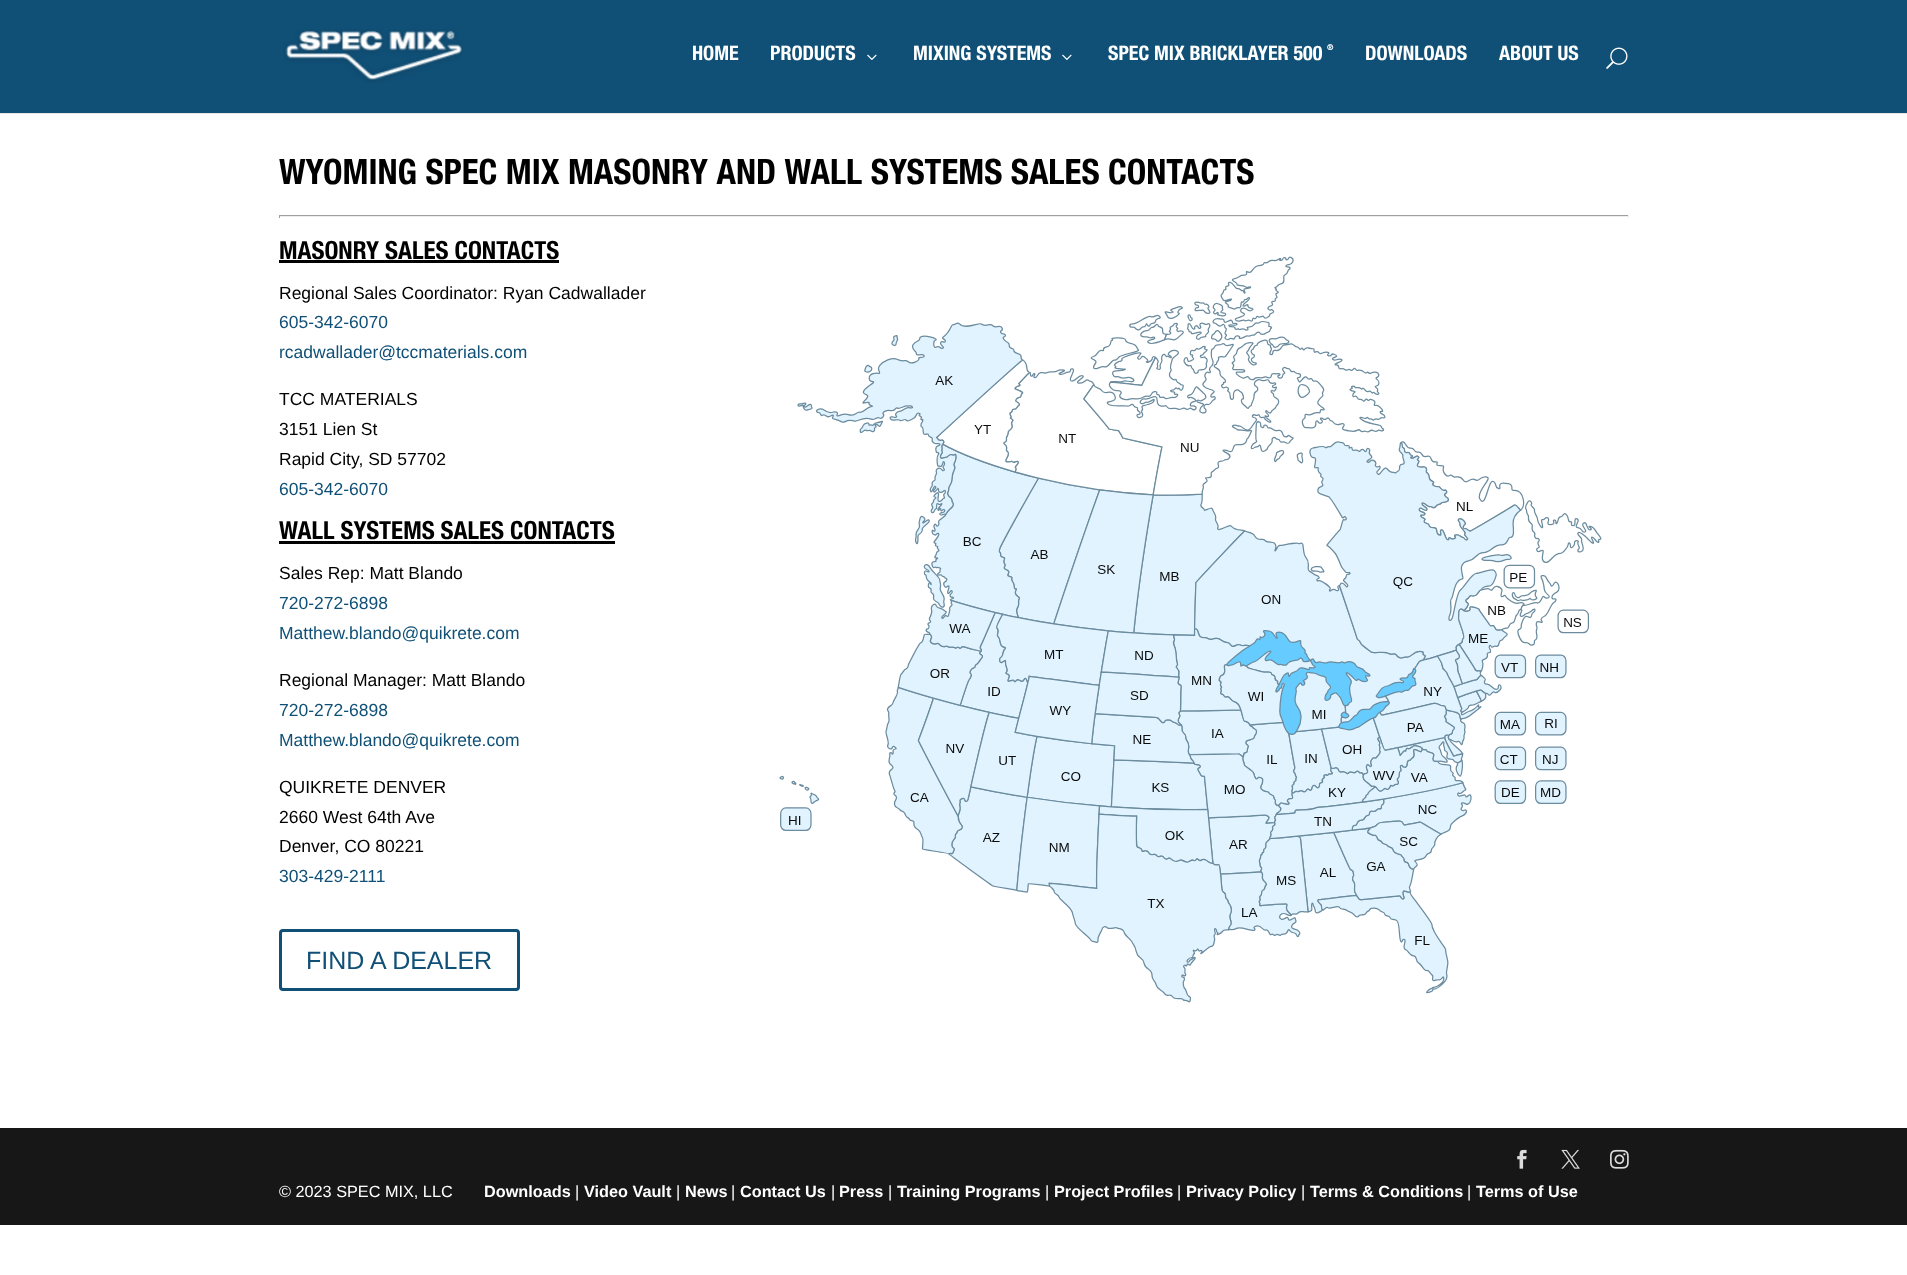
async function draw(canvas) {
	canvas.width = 1907;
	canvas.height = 1275;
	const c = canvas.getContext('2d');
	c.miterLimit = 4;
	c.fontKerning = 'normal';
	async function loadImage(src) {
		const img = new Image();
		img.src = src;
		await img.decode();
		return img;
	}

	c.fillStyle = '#fff';
	c.fillRect(0, 0, 1907, 1275);
	c.fillStyle = '#e6e6e6';
	c.beginPath();
	c.moveTo(0, 112);
	c.lineTo(0, 114);
	c.lineTo(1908, 114);
	c.lineTo(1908, 1);
	c.lineTo(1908, 112);
	c.closePath();
	c.fill();
	c.fillStyle = '#105077';
	c.fillRect(0, 0, 1907, 113);
	c.drawImage(await loadImage('img1.png'), 283, 29, 180, 54);
	c.font = 'bold 20px Helvetica Neue';
	c.fillStyle = '#fff';
	c.fillText('HOME', 692, 60);
	c.fillText('PRODUCTS', 770, 60);
	c.drawImage(await loadImage('img2.png'), 867, 54, 10, 6);
	c.fillText('MIXING SYSTEMS', 913, 60);
	c.drawImage(await loadImage('img2.png'), 1062, 54, 10, 6);
	c.fillText('SPEC MIX BRICKLAYER 500', 1108, 60);
	c.font = 'bold 8px Helvetica Neue';
	c.fillText('®', 1327, 50);
	c.font = 'bold 20px Helvetica Neue';
	c.fillText('DOWNLOADS', 1365, 60);
	c.fillText('ABOUT US', 1499, 60);
	c.drawImage(await loadImage('img3.png'), 1606, 47, 22, 22);
	c.font = 'bold 35px Helvetica Neue';
	c.fillStyle = '#000';
	c.fillText('WYOMING SPEC MIX MASONRY AND WALL SYSTEMS SALES CONTACTS', 279, 184);
	for (const [x, y, w, h, color] of [
		[279, 215, 1350, 1, '#9f9f9f'],
		[1628, 215, 1, 3, '#eee'],
		[279, 216, 1350, 1, '#eee'],
		[279, 215, 1, 3, '#9f9f9f'],
	]) {
		c.fillStyle = color;
		c.fillRect(x, y, w, h);
	}
	c.font = 'bold 25px Helvetica Neue';
	c.fillStyle = '#000';
	c.fillText('MASONRY SALES CONTACTS', 279, 259);
	c.fillRect(279, 260, 280, 3);
	c.font = '17.5px Liberation Sans';
	c.fillText('Regional Sales Coordinator: Ryan Cadwallader', 279, 299);
	c.fillStyle = '#105077';
	c.fillText('605-342-6070', 279, 328);
	c.fillText('rcadwallader@tccmaterials.com', 279, 358);
	c.fillStyle = '#000';
	for (const [text, x, y] of [
		['TCC MATERIALS', 279, 405],
		['3151 Lien St', 279, 435],
		['Rapid City, SD 57702', 279, 465],
	]) {
		c.fillText(text, x, y);
	}
	c.fillStyle = '#105077';
	c.fillText('605-342-6070', 279, 495);
	c.font = 'bold 25px Helvetica Neue';
	c.fillStyle = '#000';
	c.fillText('WALL SYSTEMS SALES CONTACTS', 279, 539);
	c.fillRect(279, 541, 336, 3);
	c.font = '17.5px Liberation Sans';
	c.fillText('Sales Rep: Matt Blando', 279, 579);
	c.fillStyle = '#105077';
	c.fillText('720-272-6898', 279, 609);
	c.fillText('Matthew.blando@quikrete.com', 279, 639);
	c.fillStyle = '#000';
	c.fillText('Regional Manager: Matt Blando', 279, 686);
	c.fillStyle = '#105077';
	c.fillText('720-272-6898', 279, 716);
	c.fillText('Matthew.blando@quikrete.com', 279, 746);
	c.fillStyle = '#000';
	for (const [text, x, y] of [
		['QUIKRETE DENVER', 279, 793],
		['2660 West 64th Ave', 279, 823],
		['Denver, CO 80221', 279, 852],
	]) {
		c.fillText(text, x, y);
	}
	c.fillStyle = '#105077';
	c.fillText('303-429-2111', 279, 882);
	c.beginPath();
	c.roundRect(280.5, 930.5, 238, 59, 2.5);
	c.strokeStyle = '#105077';
	c.lineWidth = 3;
	c.stroke();
	c.font = '25px Liberation Sans';
	c.fillText('FIND A DEALER', 306, 969);
	c.drawImage(await loadImage('img4.png'), 779, 256, 823, 747);
	c.fillStyle = '#171717';
	c.fillRect(0, 1128, 1907, 97);
	c.drawImage(await loadImage('img5.png'), 1517, 1149, 10, 20);
	c.drawImage(await loadImage('img6.png'), 1561, 1149, 19, 20);
	c.drawImage(await loadImage('img7.png'), 1610, 1149, 19, 20);
	c.font = '16.25px Liberation Sans';
	c.fillStyle = '#fff';
	c.fillText('© 2023 SPEC MIX, LLC', 279, 1197);
	c.font = 'bold 16.25px Liberation Sans';
	c.fillText('Downloads', 484, 1197);
	c.font = '16.25px Liberation Sans';
	c.fillText('|', 575, 1197);
	c.font = 'bold 16.25px Liberation Sans';
	c.fillText('Video Vault', 584, 1197);
	c.font = '16.25px Liberation Sans';
	c.fillText('|', 676, 1197);
	c.font = 'bold 16.25px Liberation Sans';
	c.fillText('News', 685, 1197);
	c.font = '16.25px Liberation Sans';
	c.fillText('|', 731, 1197);
	c.font = 'bold 16.25px Liberation Sans';
	c.fillText('Contact Us', 740, 1197);
	c.font = '16.25px Liberation Sans';
	c.fillText('|', 831, 1197);
	c.font = 'bold 16.25px Liberation Sans';
	c.fillText('Press', 839, 1197);
	c.font = '16.25px Liberation Sans';
	c.fillText('|', 888, 1197);
	c.font = 'bold 16.25px Liberation Sans';
	c.fillText('Training Programs', 897, 1197);
	c.font = '16.25px Liberation Sans';
	c.fillText('|', 1045, 1197);
	c.font = 'bold 16.25px Liberation Sans';
	c.fillText('Project Profiles', 1054, 1197);
	c.font = '16.25px Liberation Sans';
	c.fillText('|', 1177, 1197);
	c.font = 'bold 16.25px Liberation Sans';
	c.fillText('Privacy Policy', 1186, 1197);
	c.font = '16.25px Liberation Sans';
	c.fillText('|', 1301, 1197);
	c.font = 'bold 16.25px Liberation Sans';
	c.fillText('Terms & Conditions', 1310, 1197);
	c.font = '16.25px Liberation Sans';
	c.fillText('|', 1467, 1197);
	c.font = 'bold 16.25px Liberation Sans';
	c.fillText('Terms of Use', 1476, 1197);
}

draw(document.querySelector('canvas'));
